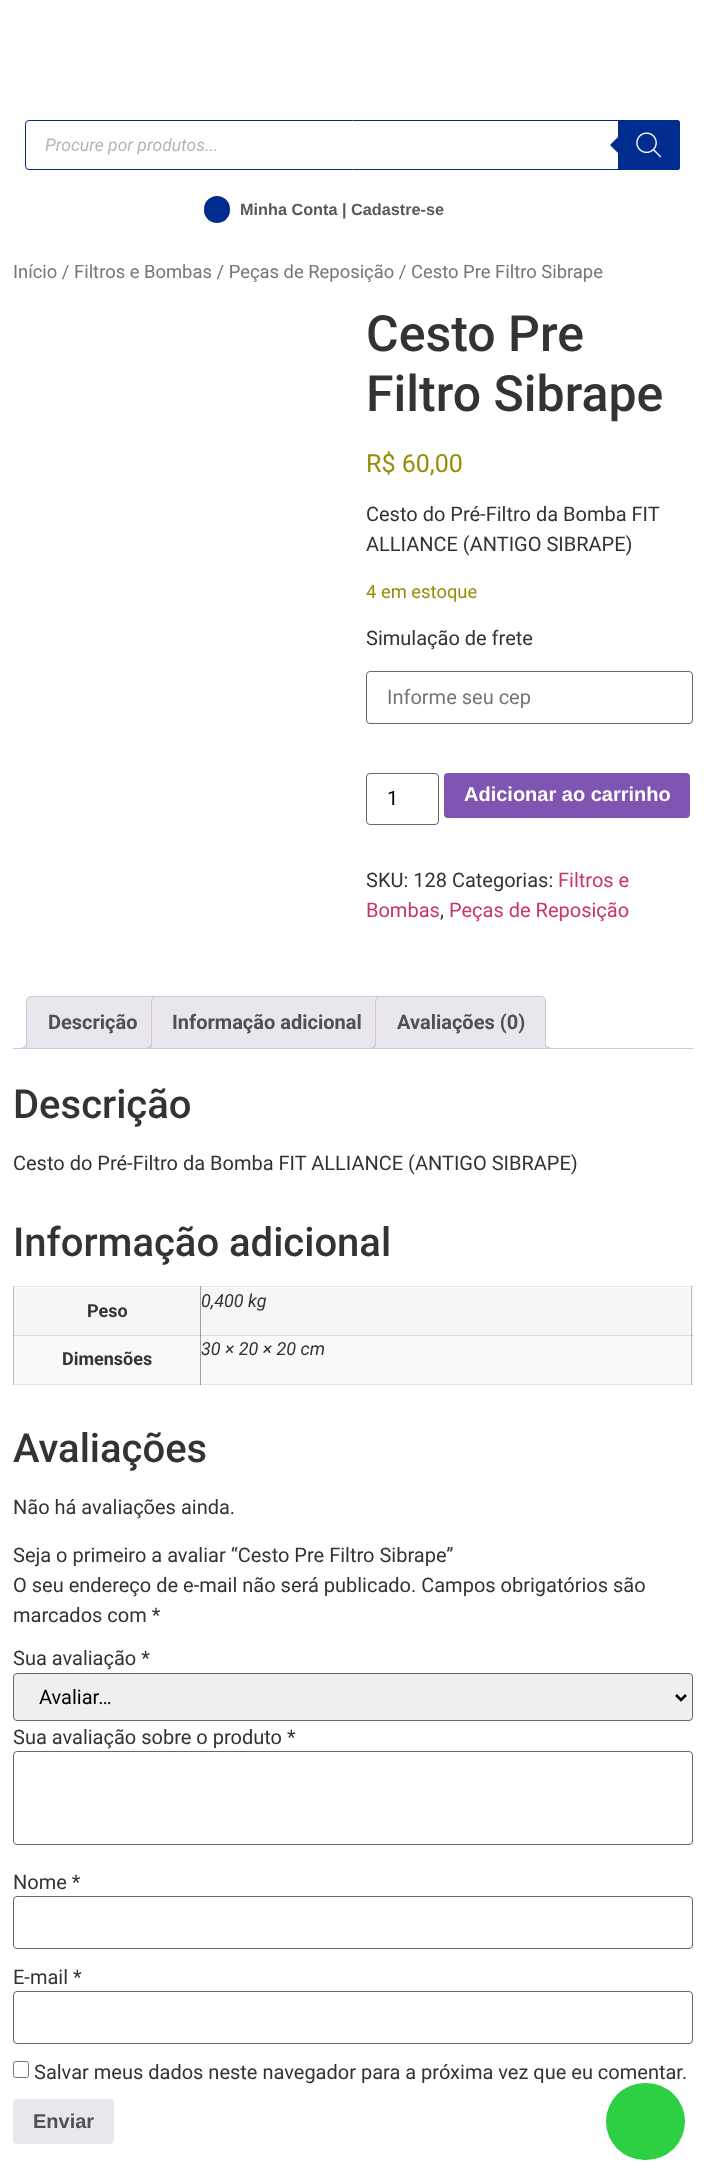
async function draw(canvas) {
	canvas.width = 704;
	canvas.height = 2180;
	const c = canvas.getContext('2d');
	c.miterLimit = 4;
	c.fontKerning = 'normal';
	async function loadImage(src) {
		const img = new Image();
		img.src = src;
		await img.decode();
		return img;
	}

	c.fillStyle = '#fff';
	c.fillRect(0, 0, 704, 2180);
	for (const [x, y, w, h, color] of [
		[13, 1286, 1, 99, '#c0c0c0'],
		[200, 1286, 1, 2, '#a0a0a0'],
		[691, 1286, 1, 2, '#c0c0c0'],
		[13, 1335, 1, 1, '#979797'],
		[13, 1384, 680, 1, '#e6e6e6'],
		[13, 1384, 1, 1, '#b3b3b3'],
		[200, 1384, 1, 1, '#8b8b8b'],
		[691, 1384, 1, 1, '#adadad'],
	]) {
		c.fillStyle = color;
		c.fillRect(x, y, w, h);
	}
	c.beginPath();
	c.roundRect(25.5, 120.5, 654, 49, 3.5);
	c.strokeStyle = '#002c8f';
	c.stroke();
	c.font = 'italic 17.5px Roboto';
	c.fillStyle = '#b6b6b6';
	c.fillText('Procure por produtos...', 45, 151);
	c.fillStyle = '#002c8f';
	c.beginPath();
	c.roundRect(618, 120, 62, 50, [0, 2.5, 2.5, 0]);
	c.fill();
	c.beginPath();
	c.moveTo(620, 135);
	c.lineTo(620, 155);
	c.lineTo(610, 145);
	c.closePath();
	c.fill();
	c.drawImage(await loadImage('img1.png'), 636, 132, 25, 26);
	c.beginPath();
	c.roundRect(204, 196, 26, 27, 13);
	c.fill();
	c.font = 'bold 16.25px Liberation Sans';
	c.fillStyle = '#54595f';
	c.fillText('Minha Conta | Cadastre-se', 240, 215);
	c.font = '18.4px Roboto';
	c.fillStyle = '#767676';
	c.fillText('Início / Filtros e Bombas / Peças de Reposição / Cesto Pre Filtro Sibrape', 13, 278);
	c.font = '500 50px Roboto';
	c.fillStyle = '#333';
	c.fillText('Cesto Pre', 366, 351);
	c.fillText('Filtro Sibrape', 366, 411);
	c.font = '25px Roboto';
	c.fillStyle = '#958e09';
	c.fillText('R$ 60,00', 366, 472);
	c.font = '20px Roboto';
	c.fillStyle = '#333';
	c.fillText('Cesto do Pré-Filtro da Bomba FIT', 366, 521);
	c.fillText('ALLIANCE (ANTIGO SIBRAPE)', 366, 551);
	c.font = '18.4px Roboto';
	c.fillStyle = '#958e09';
	c.fillText('4 em estoque', 366, 598);
	c.font = '20px Roboto';
	c.fillStyle = '#333';
	c.fillText('Simulação de frete', 366, 645);
	c.beginPath();
	c.roundRect(366.5, 671.5, 326, 52, 3.5);
	c.strokeStyle = '#666';
	c.stroke();
	c.fillStyle = '#767676';
	c.fillText('Informe seu cep', 387, 704);
	c.beginPath();
	c.roundRect(366.5, 773.5, 72, 51, 3.5);
	c.stroke();
	c.fillStyle = '#000';
	c.fillText('1', 387, 805);
	c.fillStyle = '#7f54b3';
	c.beginPath();
	c.roundRect(444, 773, 246, 45, 4);
	c.fill();
	c.font = 'bold 20px Liberation Sans';
	c.fillStyle = '#fff';
	c.fillText('Adicionar ao carrinho', 464, 801);
	c.font = '20px Roboto';
	c.fillStyle = '#333';
	c.fillText('SKU: 128 Categorias:', 366, 887);
	c.fillStyle = '#c36';
	c.fillText('Filtros e', 558, 887);
	c.fillText('Bombas', 366, 917);
	c.fillStyle = '#333';
	c.fillText(',', 440, 917);
	c.fillStyle = '#c36';
	c.fillText('Peças de Reposição', 449, 917);
	c.fillStyle = '#e9e6ed';
	c.beginPath();
	c.roundRect(26.5, 996.5, 132, 52, [4.5, 4.5, 0, 0]);
	c.fill();
	c.strokeStyle = '#cfc8d8';
	c.stroke();
	c.font = 'bold 20px Roboto';
	c.fillStyle = '#515151';
	c.fillText('Descrição', 48, 1029);
	c.save();
	c.beginPath();
	c.rect(13, 996, 680, 53);
	c.clip();
	c.fillStyle = '#e9e6ed';
	c.beginPath();
	c.moveTo(24, 1048.5);
	c.lineTo(24, 1051);
	c.bezierCurveTo(28, 1051, 30, 1049, 30, 1045);
	c.lineTo(27.5, 1045);
	c.bezierCurveTo(27, 1046.5, 25.5, 1048, 24, 1048.5);
	c.closePath();
	c.fill();
	c.restore();
	c.fillStyle = '#cfc8d8';
	c.beginPath();
	c.moveTo(21, 1042.5);
	c.lineTo(27.5, 1042.5);
	c.bezierCurveTo(27.5, 1047, 25.5, 1049, 21, 1049);
	c.closePath();
	c.moveTo(21, 1042.5);
	c.lineTo(26, 1042.5);
	c.bezierCurveTo(26, 1046, 25, 1047.5, 21, 1047.5);
	c.closePath();
	c.fill('evenodd');
	c.fillStyle = '#e9e6ed';
	c.beginPath();
	c.roundRect(151.5, 996.5, 231, 52, [4.5, 4.5, 0, 0]);
	c.fill();
	c.stroke();
	c.fillStyle = '#515151';
	c.fillText('Informação adicional', 172, 1029);
	c.save();
	c.beginPath();
	c.rect(13, 996, 680, 53);
	c.clip();
	c.fillStyle = '#e9e6ed';
	c.beginPath();
	c.moveTo(149, 1048.5);
	c.lineTo(149, 1051);
	c.bezierCurveTo(153, 1051, 155, 1049, 155, 1045);
	c.lineTo(152.5, 1045);
	c.bezierCurveTo(152, 1046.5, 150.5, 1048, 149, 1048.5);
	c.closePath();
	c.fill();
	c.restore();
	c.fillStyle = '#cfc8d8';
	c.beginPath();
	c.moveTo(146, 1042.5);
	c.lineTo(152.5, 1042.5);
	c.bezierCurveTo(152.5, 1047, 150.5, 1049, 146, 1049);
	c.closePath();
	c.moveTo(146, 1042.5);
	c.lineTo(151, 1042.5);
	c.bezierCurveTo(151, 1046, 150, 1047.5, 146, 1047.5);
	c.closePath();
	c.fill('evenodd');
	c.fillStyle = '#e9e6ed';
	c.beginPath();
	c.roundRect(375.5, 996.5, 170, 52, [4.5, 4.5, 0, 0]);
	c.fill();
	c.stroke();
	c.fillStyle = '#515151';
	c.fillText('Avaliações (0)', 397, 1029);
	c.save();
	c.beginPath();
	c.rect(13, 996, 680, 53);
	c.clip();
	c.fillStyle = '#e9e6ed';
	c.beginPath();
	c.moveTo(373, 1048.5);
	c.lineTo(373, 1051);
	c.bezierCurveTo(377, 1051, 379, 1049, 379, 1045);
	c.lineTo(376, 1045);
	c.bezierCurveTo(375.5, 1046.5, 374.5, 1048, 373, 1048.5);
	c.closePath();
	c.fill();
	c.restore();
	c.fillStyle = '#cfc8d8';
	c.beginPath();
	c.moveTo(370, 1042.5);
	c.lineTo(376, 1042.5);
	c.bezierCurveTo(376, 1047, 374.5, 1049, 370, 1049);
	c.closePath();
	c.moveTo(370, 1042.5);
	c.lineTo(375, 1042.5);
	c.bezierCurveTo(375, 1046, 373.5, 1047.5, 370, 1047.5);
	c.closePath();
	c.fill('evenodd');
	c.save();
	c.beginPath();
	c.rect(13, 996, 680, 53);
	c.clip();
	c.fillStyle = '#e9e6ed';
	c.beginPath();
	c.moveTo(543, 1045);
	c.bezierCurveTo(543, 1049, 545, 1051, 549, 1051);
	c.lineTo(549, 1048.5);
	c.bezierCurveTo(547, 1048.5, 545.5, 1047, 545, 1045);
	c.closePath();
	c.fill();
	c.restore();
	c.beginPath();
	c.moveTo(545, 1042.5);
	c.lineTo(551, 1042.5);
	c.lineTo(551, 1049);
	c.bezierCurveTo(548, 1049, 545, 1047.5, 545, 1044);
	c.closePath();
	c.moveTo(546, 1042.5);
	c.lineTo(551, 1042.5);
	c.lineTo(551, 1047.5);
	c.bezierCurveTo(549, 1047.5, 546, 1046.5, 546, 1044);
	c.closePath();
	c.fill('evenodd');
	c.fillRect(13, 1048, 680, 1);
	c.font = '500 40px Roboto';
	c.fillStyle = '#333';
	c.fillText('Descrição', 13, 1118);
	c.font = '20px Roboto';
	c.fillText('Cesto do Pré-Filtro da Bomba FIT ALLIANCE (ANTIGO SIBRAPE)', 13, 1170);
	c.font = '500 40px Roboto';
	c.fillText('Informação adicional', 13, 1256);
	for (const [x, y, w, h, color] of [
		[13, 1286, 680, 1, '#e6e6e6'],
		[13, 1286, 1, 1, '#b3b3b3'],
		[200, 1286, 1, 1, '#9a9a9a'],
		[691, 1286, 1, 1, '#b3b3b3'],
		[14, 1288, 186, 47, '#f6f6f6'],
		[14, 1335, 679, 1, '#ddd'],
		[200, 1288, 1, 48, '#9e9e9e'],
		[200, 1335, 1, 1, '#777'],
	]) {
		c.fillStyle = color;
		c.fillRect(x, y, w, h);
	}
	c.font = 'bold 18px Roboto';
	c.fillStyle = '#333';
	c.fillText('Peso', 87, 1317);
	for (const [x, y, w, h, color] of [
		[201, 1288, 492, 47, '#f6f6f6'],
		[691, 1288, 1, 48, '#bbb'],
		[691, 1335, 1, 1, '#8e8e8e'],
	]) {
		c.fillStyle = color;
		c.fillRect(x, y, w, h);
	}
	c.font = 'italic 18px Roboto';
	c.fillStyle = '#333';
	c.fillText('0,400 kg', 201, 1307);
	c.fillStyle = '#f9f9f9';
	c.fillRect(201, 1336, 492, 48);
	c.fillStyle = '#bdbdbd';
	c.fillRect(691, 1336, 1, 48);
	c.fillStyle = '#333';
	c.fillText('30 × 20 × 20 cm', 201, 1355);
	c.fillStyle = '#f9f9f9';
	c.fillRect(14, 1336, 186, 48);
	c.fillStyle = '#9f9f9f';
	c.fillRect(200, 1336, 1, 48);
	c.font = 'bold 18px Roboto';
	c.fillStyle = '#333';
	c.fillText('Dimensões', 62, 1365);
	c.font = '500 40px Roboto';
	c.fillText('Avaliações', 13, 1462);
	c.font = '20px Roboto';
	for (const [text, x, y] of [
		['Não há avaliações ainda.', 13, 1514],
		['Seja o primeiro a avaliar “Cesto Pre Filtro Sibrape”', 13, 1562],
		['O seu endereço de e-mail não será publicado. Campos obrigatórios são', 13, 1592],
		['marcados com *', 13, 1622],
		['Sua avaliação *', 13, 1665],
	]) {
		c.fillText(text, x, y);
	}
	c.fillStyle = '#efefef';
	c.beginPath();
	c.roundRect(13.5, 1673.5, 679, 47, 3.5);
	c.fill();
	c.strokeStyle = '#666';
	c.stroke();
	c.beginPath();
	c.moveTo(676, 1695);
	c.lineTo(681, 1700);
	c.lineTo(686, 1695);
	c.strokeStyle = '#000';
	c.lineWidth = 2.5;
	c.stroke();
	c.fillStyle = '#000';
	c.fillText('Avaliar…', 39, 1704);
	c.fillStyle = '#333';
	c.fillText('Sua avaliação sobre o produto *', 13, 1744);
	c.beginPath();
	c.roundRect(13.5, 1751.5, 679, 93, 3.5);
	c.strokeStyle = '#666';
	c.lineWidth = 1;
	c.stroke();
	c.fillText('Nome *', 13, 1889);
	c.beginPath();
	c.roundRect(13.5, 1896.5, 679, 52, 3.5);
	c.stroke();
	c.fillText('E-mail *', 13, 1984);
	c.beginPath();
	c.roundRect(13.5, 1991.5, 679, 52, 3.5);
	c.stroke();
	c.beginPath();
	c.roundRect(13.5, 2061.5, 15, 16, 2);
	c.strokeStyle = '#767676';
	c.stroke();
	c.fillText('Salvar meus dados neste navegador para a próxima vez que eu comentar.', 34, 2079);
	c.fillStyle = '#e9e6ed';
	c.beginPath();
	c.roundRect(13, 2099, 101, 45, 4);
	c.fill();
	c.font = 'bold 20px Liberation Sans';
	c.fillStyle = '#515151';
	c.fillText('Enviar', 33, 2128);
	c.fillStyle = '#2dcf43';
	c.beginPath();
	c.roundRect(606, 2083, 79, 77, 38.5);
	c.fill();
}

draw(document.querySelector('canvas'));
